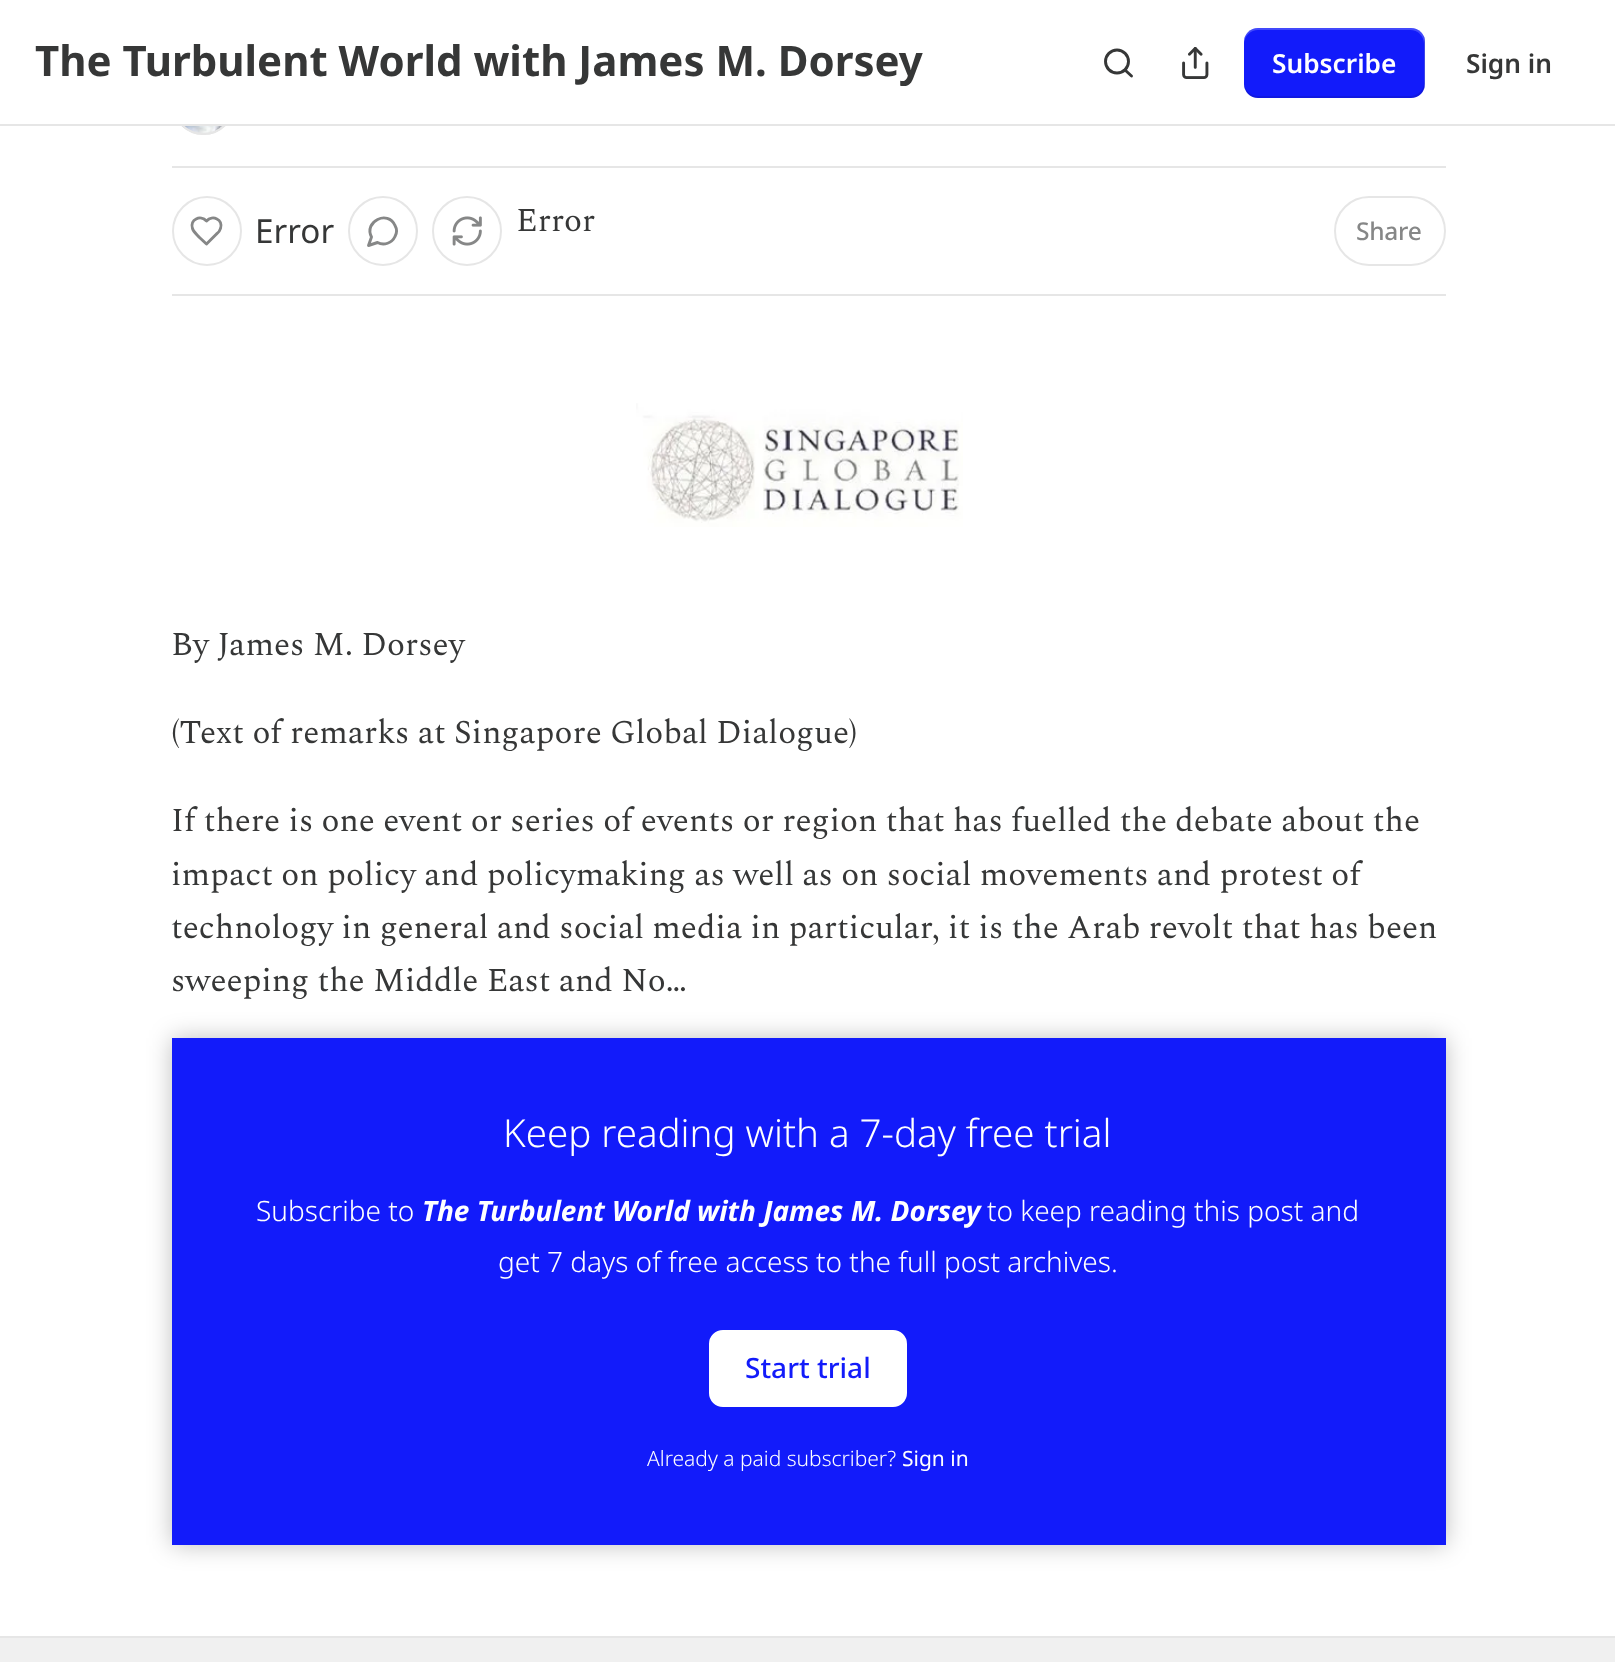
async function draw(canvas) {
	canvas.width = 1615;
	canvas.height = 1662;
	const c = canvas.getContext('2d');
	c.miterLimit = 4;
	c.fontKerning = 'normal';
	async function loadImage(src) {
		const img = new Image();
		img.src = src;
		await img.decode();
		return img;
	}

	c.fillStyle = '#fff';
	c.fillRect(0, 0, 1615, 1662);
	c.beginPath();
	c.arc(203.5, 103.5, 30.5, 0, 2 * Math.PI);
	c.strokeStyle = '#e6e6e6';
	c.lineWidth = 2;
	c.stroke();
	c.drawImage(await loadImage('img2.png'), 182, 126, 41, 8);
	c.beginPath();
	c.arc(203.5, 103.5, 30.5, 0, 2 * Math.PI);
	c.stroke();
	c.fillRect(172, 72, 63, 52);
	c.fillStyle = '#e6e6e6';
	c.fillRect(0, 124, 1615, 2);
	c.font = 'bold 42px Noto Sans';
	c.fillStyle = '#363737';
	c.fillText('The Turbulent World with James M. Dorsey', 35, 76);
	c.beginPath();
	c.arc(1117, 61.5, 11.5, 0, 2 * Math.PI);
	c.strokeStyle = '#363737';
	c.lineWidth = 2.9;
	c.stroke();
	c.beginPath();
	c.moveTo(1131.5, 76);
	c.lineTo(1125, 70);
	c.lineCap = 'round';
	c.lineJoin = 'round';
	c.stroke();
	c.drawImage(await loadImage('img1.png'), 1182, 47, 27, 32);
	c.fillStyle = '#121bfa';
	c.beginPath();
	c.roundRect(1244, 28, 181, 70, 14);
	c.fill();
	c.fillStyle = '#0000001a';
	c.beginPath();
	c.moveTo(1244, 82);
	c.lineTo(1244, 84);
	c.bezierCurveTo(1244, 92, 1250, 98, 1258, 98);
	c.lineTo(1411, 98);
	c.bezierCurveTo(1419, 98, 1425, 92, 1425, 84);
	c.lineTo(1425, 42);
	c.bezierCurveTo(1425, 39, 1424, 36, 1423, 34);
	c.bezierCurveTo(1424, 36, 1424, 38, 1424, 40);
	c.lineTo(1424, 82);
	c.bezierCurveTo(1424, 90, 1418, 96, 1410, 96);
	c.lineTo(1258, 96);
	c.bezierCurveTo(1251, 96, 1244, 90, 1244, 82);
	c.closePath();
	c.fill();
	c.fillStyle = '#ffffff33';
	c.beginPath();
	c.moveTo(1258, 30);
	c.lineTo(1410, 30);
	c.bezierCurveTo(1418, 30, 1424, 36, 1424, 44);
	c.lineTo(1424, 86);
	c.bezierCurveTo(1424, 88, 1424, 90, 1423, 92);
	c.bezierCurveTo(1424, 90, 1425, 87, 1425, 84);
	c.lineTo(1425, 42);
	c.bezierCurveTo(1425, 34, 1419, 28, 1411, 28);
	c.lineTo(1258, 28);
	c.bezierCurveTo(1250, 28, 1244, 34, 1244, 42);
	c.lineTo(1244, 44);
	c.bezierCurveTo(1244, 36, 1251, 30, 1258, 30);
	c.closePath();
	c.fill();
	c.font = '600 26.25px Noto Sans';
	c.fillStyle = '#fff';
	c.fillText('Subscribe', 1272, 73);
	c.fillStyle = '#363737';
	c.fillText('Sign in', 1466, 73);
	c.fillStyle = '#e6e6e6';
	c.fillRect(172, 166, 1274, 2);
	c.fillRect(172, 294, 1274, 2);
	c.beginPath();
	c.arc(207, 231, 34, 0, 2 * Math.PI);
	c.strokeStyle = '#e6e6e6';
	c.lineWidth = 2;
	c.stroke();
	c.beginPath();
	c.moveTo(216.5, 234);
	c.bezierCurveTo(218.5, 232.5, 220, 230.5, 220.5, 228.5);
	c.bezierCurveTo(223.5, 219.5, 212.5, 214.5, 206.5, 221);
	c.bezierCurveTo(200.5, 214.5, 189.5, 219.5, 192.5, 228.5);
	c.bezierCurveTo(193.5, 232, 197, 234.5, 199.5, 237.5);
	c.lineTo(206.5, 244);
	c.closePath();
	c.strokeStyle = '#868787';
	c.lineWidth = 2.9;
	c.stroke();
	c.font = '33.25px Noto Sans';
	c.fillStyle = '#363737';
	c.fillText('Error', 255, 243);
	c.beginPath();
	c.arc(383, 231, 34, 0, 2 * Math.PI);
	c.strokeStyle = '#e6e6e6';
	c.lineWidth = 2;
	c.stroke();
	c.beginPath();
	c.moveTo(377.5, 242.5);
	c.bezierCurveTo(384, 246, 392, 243, 395, 236.5);
	c.bezierCurveTo(397, 233, 397, 229, 395, 225.5);
	c.bezierCurveTo(388, 209.5, 363.5, 221.5, 371.5, 237);
	c.lineTo(368.5, 245.5);
	c.closePath();
	c.strokeStyle = '#868787';
	c.lineWidth = 2.9;
	c.stroke();
	c.beginPath();
	c.arc(467, 231, 34, 0, 2 * Math.PI);
	c.strokeStyle = '#e6e6e6';
	c.lineWidth = 2;
	c.stroke();
	c.drawImage(await loadImage('img3.png'), 452, 216, 30, 30);
	c.font = '33.25px Spectral';
	c.fillText('Error', 516, 231);
	c.beginPath();
	c.roundRect(1335, 197, 110, 68, 34);
	c.lineJoin = 'miter';
	c.stroke();
	c.letterSpacing = '-0.25px';
	c.font = '500 24.5px Noto Sans';
	c.fillStyle = '#868787';
	c.fillText('Share', 1356, 240);
	c.drawImage(await loadImage('img4.png'), 636, 403, 327, 124);
	c.letterSpacing = '0px';
	c.font = '33.25px Spectral';
	c.fillStyle = '#363737';
	for (const [text, x, y] of [
		['By James M. Dorsey', 171, 655],
		['(Text of remarks at Singapore Global Dialogue)', 171, 743],
		['If there is one event or series of events or region that has fuelled the debate about the', 171, 831],
		['impact on policy and policymaking as well as on social movements and protest of', 171, 885],
		['technology in general and social media in particular, it is the Arab revolt that has been', 171, 938],
		['sweeping the Middle East and No…', 171, 991],
	]) {
		c.fillText(text, x, y);
	}
	c.fillStyle = '#121bfa';
	c.fillRect(172, 1038, 1274, 507);
	c.fillStyle = '#fff';
	c.beginPath();
	c.roundRect(710, 1331, 196, 75, 13);
	c.fill();
	c.strokeStyle = '#fff';
	c.stroke();
	c.save();
	c.beginPath();
	c.moveTo(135, 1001);
	c.lineTo(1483, 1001);
	c.lineTo(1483, 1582);
	c.lineTo(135, 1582);
	c.closePath();
	c.moveTo(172, 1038);
	c.lineTo(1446, 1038);
	c.lineTo(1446, 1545);
	c.lineTo(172, 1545);
	c.closePath();
	c.clip('evenodd');
	c.fillStyle = '#00000040';
	c.filter = 'blur(12px)';
	c.beginPath();
	c.rect(172, 1038, 1274, 507);
	c.fill();
	c.filter = 'none';
	c.restore();
	c.font = '300 38.5px Noto Sans';
	c.fillText('Keep reading with a 7-day free trial', 503, 1147);
	c.font = '300 28px Noto Sans';
	c.fillText('Subscribe to', 256, 1221);
	c.font = 'italic bold 28px Noto Sans';
	c.fillText('The Turbulent World with James M. Dorsey', 422, 1221);
	c.font = '300 28px Noto Sans';
	c.fillText('to keep reading this post and', 987, 1221);
	c.fillText('get 7 days of free access to the full post archives.', 498, 1272);
	c.font = '500 28px Noto Sans';
	c.fillStyle = '#121bfa';
	c.fillText('Start trial', 745, 1378);
	c.font = '300 21px Noto Sans';
	c.fillStyle = '#fff';
	c.fillText('Already a paid subscriber?', 647, 1466);
	c.font = '21px Noto Sans';
	c.fillText('Sign in', 902, 1466);
	c.fillStyle = '#f0f0f0';
	c.fillRect(0, 1638, 1615, 24);
	c.fillStyle = '#e6e6e6';
	c.fillRect(0, 1636, 1615, 2);
}

draw(document.querySelector('canvas'));
